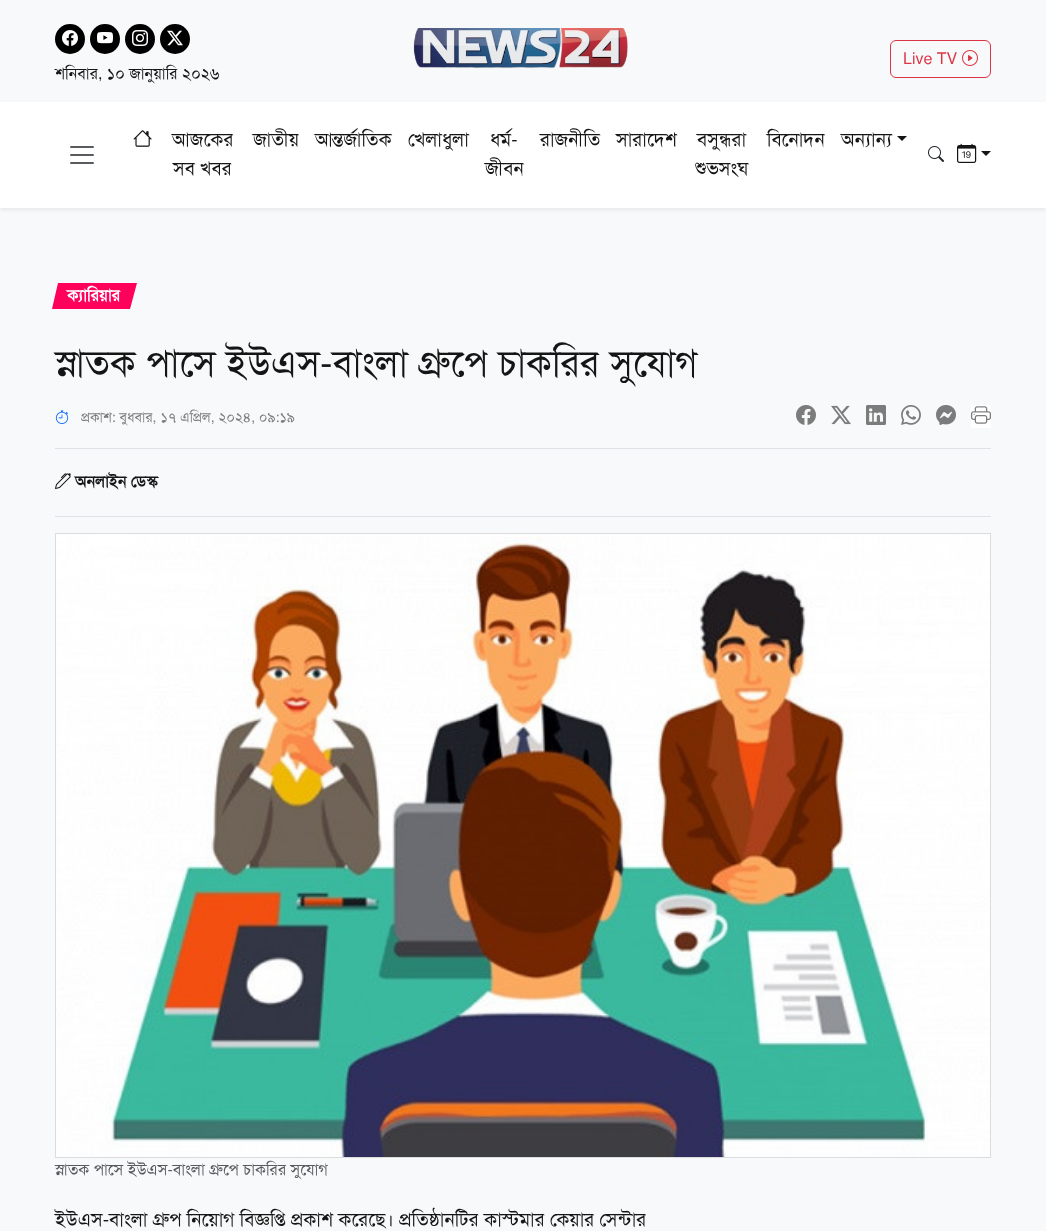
async function draw(canvas) {
	canvas.width = 1046;
	canvas.height = 1231;
	const c = canvas.getContext('2d');
	c.miterLimit = 4;
	c.fontKerning = 'normal';
	async function loadImage(src) {
		const img = new Image();
		img.src = src;
		await img.decode();
		return img;
	}

	c.fillStyle = '#f8f9fa';
	c.fillRect(0, 0, 1046, 1231);
	c.drawImage(await loadImage('img1.png'), 413, 28, 215, 41);
	c.beginPath();
	c.roundRect(890.5, 40.5, 100, 37, 5.5);
	c.strokeStyle = '#dc3545';
	c.stroke();
	c.font = '16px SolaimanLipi';
	c.fillStyle = '#dc3545';
	c.fillText('Live TV', 903, 64);
	c.drawImage(await loadImage('img2.png'), 962, 50, 16, 16);
	c.fillStyle = '#000';
	c.beginPath();
	c.arc(70, 39, 15, 0, 2 * Math.PI);
	c.fill();
	c.drawImage(await loadImage('img3.png'), 62, 30, 16, 16);
	c.beginPath();
	c.arc(105, 39, 15, 0, 2 * Math.PI);
	c.fill();
	c.drawImage(await loadImage('img4.png'), 97, 32, 16, 12);
	c.beginPath();
	c.arc(140, 39, 15, 0, 2 * Math.PI);
	c.fill();
	c.drawImage(await loadImage('img5.png'), 132, 30, 16, 16);
	c.beginPath();
	c.arc(175, 39, 15, 0, 2 * Math.PI);
	c.fill();
	c.drawImage(await loadImage('img6.png'), 167, 30, 16, 16);
	c.fillStyle = '#141514';
	c.fillText('শনিবার, ১০ জানুয়ারি ২০২৬', 55, 79);
	c.fillStyle = '#00000012';
	c.filter = 'blur(2px)';
	c.beginPath();
	c.rect(0, 104, 1046, 106);
	c.fill();
	c.filter = 'none';
	c.fillStyle = '#fff';
	c.fillRect(0, 102, 1046, 106);
	c.drawImage(await loadImage('img7.png'), 70, 146, 24, 18);
	c.drawImage(await loadImage('img8.png'), 133, 130, 19, 17);
	c.font = '19.2px SolaimanLipi';
	c.fillStyle = '#141514';
	for (const [text, x, y] of [
		['আজকের', 172, 146],
		['সব খবর', 173, 175],
		['জাতীয়', 253, 146],
		['আন্তর্জাতিক', 315, 146],
		['খেলাধুলা', 408, 146],
		['ধর্ম-', 490, 146],
		['জীবন', 485, 175],
		['রাজনীতি', 540, 146],
		['সারাদেশ', 616, 146],
		['বসুন্ধরা', 697, 146],
		['শুভসংঘ', 695, 175],
		['বিনোদন', 767, 146],
		['অন্যান্য', 841, 146],
	]) {
		c.fillText(text, x, y);
	}
	c.beginPath();
	c.moveTo(897, 136);
	c.lineTo(907, 136);
	c.lineTo(902, 141);
	c.closePath();
	c.fill();
	c.drawImage(await loadImage('img9.png'), 928, 146, 16, 16);
	c.drawImage(await loadImage('img10.png'), 957, 143, 20, 20);
	c.beginPath();
	c.moveTo(981, 151);
	c.lineTo(991, 151);
	c.lineTo(986, 156);
	c.closePath();
	c.fill();
	c.fillStyle = '#ff005b';
	c.beginPath();
	c.moveTo(58, 283);
	c.lineTo(137, 283);
	c.lineTo(130, 309);
	c.lineTo(52, 309);
	c.closePath();
	c.fill();
	c.letterSpacing = '-0.25px';
	c.font = 'bold 16.5px SolaimanLipi';
	c.fillStyle = '#fff';
	c.fillText('ক্যারিয়ার', 67, 301);
	c.letterSpacing = '0px';
	c.font = '37.7px SolaimanLipi';
	c.fillStyle = '#141514';
	c.fillText('স্নাতক পাসে ইউএস-বাংলা গ্রুপে চাকরির সুযোগ', 55, 376);
	c.fillStyle = '#dee2e6';
	c.fillRect(55, 448, 936, 1);
	c.drawImage(await loadImage('img11.png'), 55, 410, 14, 14);
	c.font = '14px SolaimanLipi';
	c.fillStyle = '#7c7d7d';
	c.fillText('প্রকাশ: বুধবার, ১৭ এপ্রিল, ২০২৪, ০৯:১৯', 81, 422);
	c.drawImage(await loadImage('img12.png'), 796, 405, 20, 20);
	c.drawImage(await loadImage('img13.png'), 831, 405, 20, 20);
	c.drawImage(await loadImage('img14.png'), 866, 405, 20, 20);
	c.drawImage(await loadImage('img15.png'), 901, 405, 20, 20);
	c.drawImage(await loadImage('img16.png'), 936, 405, 20, 20);
	c.fillStyle = '#fff';
	c.fillRect(971, 405, 20, 23);
	c.drawImage(await loadImage('img17.png'), 971, 406, 20, 18);
	c.drawImage(await loadImage('img18.png'), 55, 473, 16, 16);
	c.font = 'bold 16px SolaimanLipi';
	c.fillStyle = '#141514';
	c.fillText('অনলাইন ডেস্ক', 75, 487);
	c.fillStyle = '#dee2e6';
	c.fillRect(55, 516, 936, 1);
	c.strokeStyle = '#dbdcdd';
	c.strokeRect(55.5, 533.5, 935, 624);
	c.drawImage(await loadImage('img19.png'), 56, 534, 934, 623);
	c.font = '16px SolaimanLipi';
	c.fillStyle = '#575a5d';
	c.fillText('স্নাতক পাসে ইউএস-বাংলা গ্রুপে চাকরির সুযোগ', 55, 1175);
	c.font = '19.2px SolaimanLipi';
	c.fillStyle = '#141514';
	c.fillText('ইউএস-বাংলা গ্রুপ নিয়োগ বিজ্ঞপ্তি প্রকাশ করেছে। প্রতিষ্ঠানটির কাস্টমার কেয়ার সেন্টার', 55, 1226);
}

draw(document.querySelector('canvas'));
